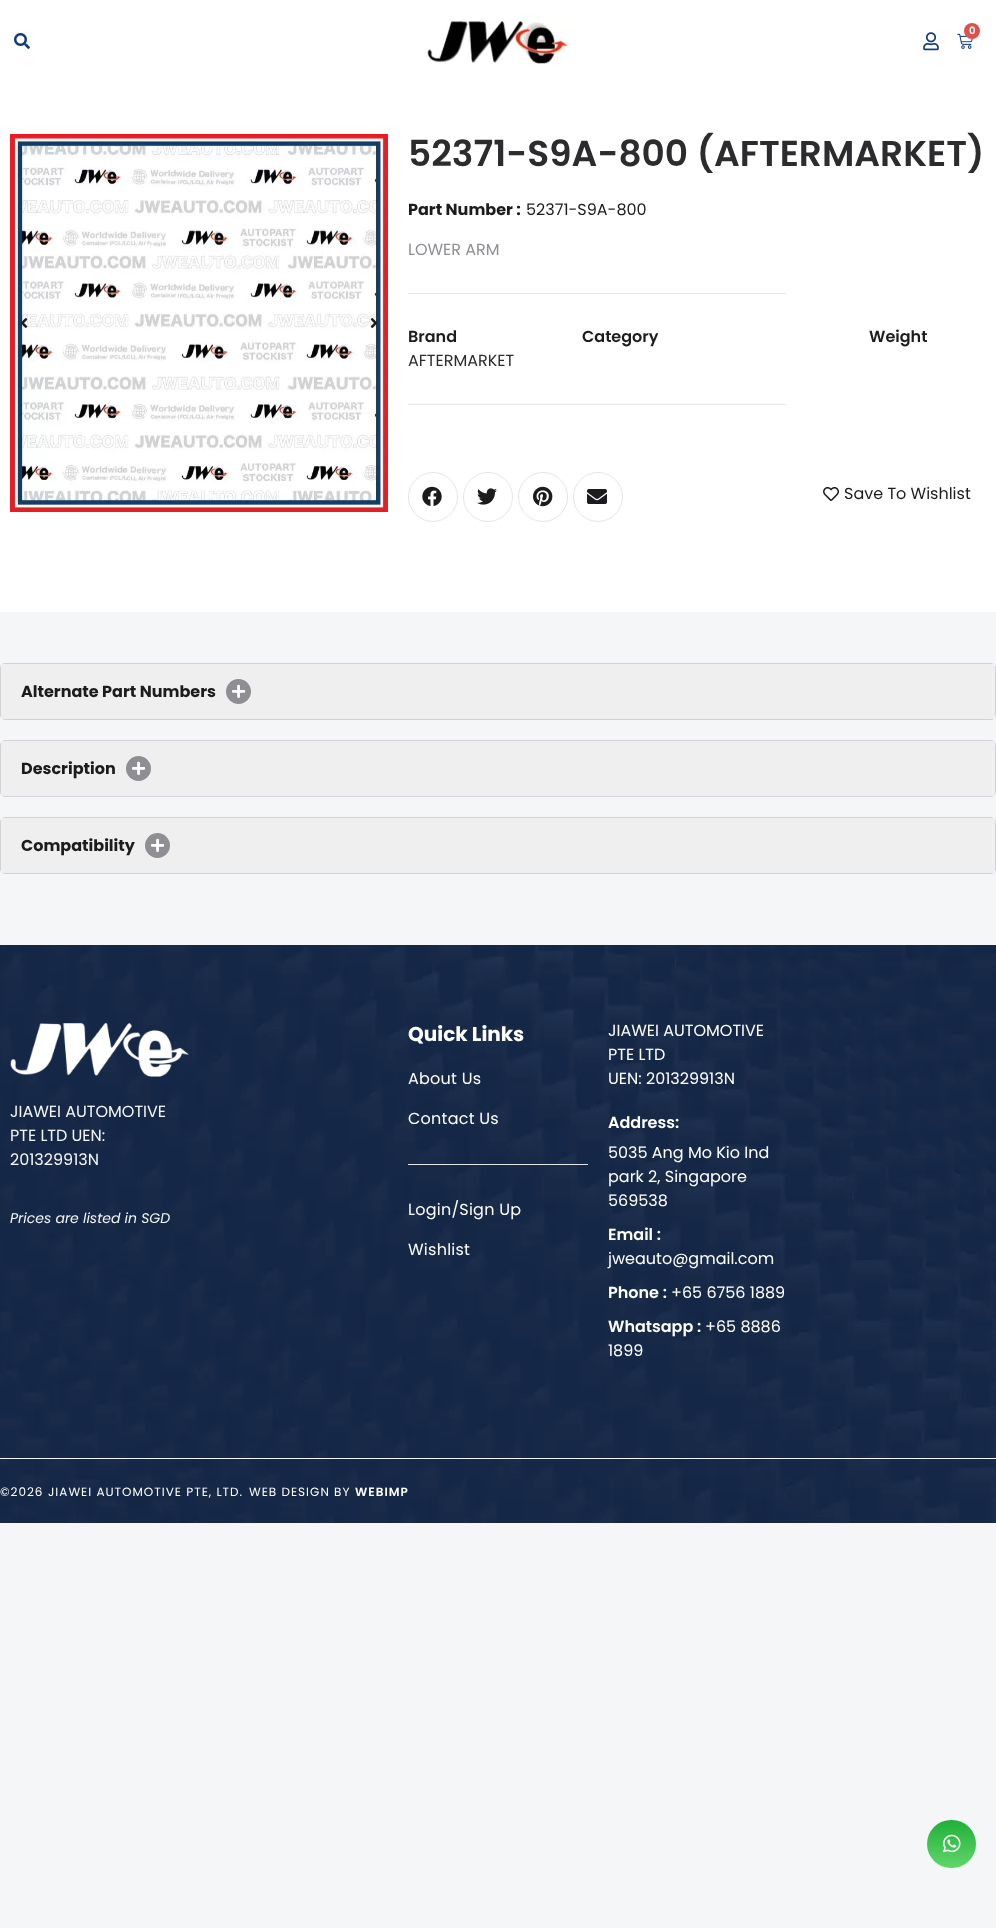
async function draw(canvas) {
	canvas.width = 996;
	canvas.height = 1928;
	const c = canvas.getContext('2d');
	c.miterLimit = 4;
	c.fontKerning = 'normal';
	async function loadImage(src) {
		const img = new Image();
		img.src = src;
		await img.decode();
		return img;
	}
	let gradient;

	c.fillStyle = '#f5f6f8';
	c.fillRect(0, 0, 996, 1928);
	c.fillStyle = '#fff';
	c.fillRect(0, 0, 996, 612);
	c.drawImage(await loadImage('img1.png'), 427, 19, 142, 46);
	c.drawImage(await loadImage('img2.png'), 957, 33, 16, 16);
	c.fillStyle = '#d9534f';
	c.beginPath();
	c.arc(972, 31, 8, 0, 2 * Math.PI);
	c.fill();
	c.font = '600 10px Poppins';
	c.fillStyle = '#fff';
	c.fillText('0', 969, 34);
	c.drawImage(await loadImage('img3.png'), 923, 32, 16, 19);
	c.drawImage(await loadImage('img4.png'), 14, 33, 16, 16);
	c.drawImage(await loadImage('img5.png'), 10, 134, 378, 378);
	c.drawImage(await loadImage('img6.png'), 20, 318, 8, 10);
	c.drawImage(await loadImage('img7.png'), 370, 318, 8, 10);
	c.font = '600 36px Poppins';
	c.fillStyle = '#2c2c2e';
	c.fillText('52371-S9A-800 (AFTERMARKET)', 408, 166);
	c.font = 'bold 16px Poppins';
	c.fillStyle = '#1c1c1e';
	c.fillText('Part Number :', 408, 215);
	c.font = '16px Poppins';
	c.fillText('52371-S9A-800', 526, 215);
	c.fillStyle = '#8e8e93';
	c.fillText('LOWER ARM', 408, 255);
	c.fillStyle = '#e5e5ea';
	c.fillRect(408, 293, 378, 1);
	c.font = '600 16px Poppins';
	c.fillStyle = '#1c1c1e';
	c.fillText('Brand', 408, 342);
	c.font = '16px Poppins';
	c.fillStyle = '#2c2c2e';
	c.fillText('AFTERMARKET', 408, 366);
	c.font = '600 16px Poppins';
	c.fillStyle = '#1c1c1e';
	c.fillText('Category', 582, 342);
	c.fillText('Weight', 869, 342);
	c.fillStyle = '#e5e5ea';
	c.fillRect(408, 404, 378, 1);
	c.beginPath();
	c.arc(433, 497, 24.5, 0, 2 * Math.PI);
	c.strokeStyle = '#e5e5ea';
	c.stroke();
	c.drawImage(await loadImage('img8.png'), 422, 486, 20, 20);
	c.beginPath();
	c.arc(488, 497, 24.5, 0, 2 * Math.PI);
	c.stroke();
	c.drawImage(await loadImage('img9.png'), 477, 488, 20, 17);
	c.beginPath();
	c.arc(543, 497, 24.5, 0, 2 * Math.PI);
	c.stroke();
	c.drawImage(await loadImage('img10.png'), 533, 486, 20, 21);
	c.beginPath();
	c.arc(598, 497, 24.5, 0, 2 * Math.PI);
	c.stroke();
	c.drawImage(await loadImage('img11.png'), 587, 489, 20, 15);
	c.drawImage(await loadImage('img12.png'), 823, 487, 16, 14);
	c.font = '16px Poppins';
	c.fillStyle = '#1c1c1e';
	c.fillText('Save To Wishlist', 844, 499);
	c.beginPath();
	c.roundRect(0.5, 663.5, 995, 56, 4.5);
	c.strokeStyle = '#d1d1d6';
	c.stroke();
	c.fillStyle = '#efefef';
	c.fillRect(1, 664, 994, 55);
	c.font = 'bold 16px Poppins';
	c.fillStyle = '#1c1c1e';
	c.fillText('Alternate Part Numbers', 21, 697);
	c.fillStyle = '#8e8e93';
	c.beginPath();
	c.arc(238.5, 691.5, 12.5, 0, 2 * Math.PI);
	c.fill();
	c.drawImage(await loadImage('img13.png'), 232, 684, 14, 14);
	c.beginPath();
	c.roundRect(0.5, 740.5, 995, 56, 4.5);
	c.stroke();
	c.fillStyle = '#efefef';
	c.fillRect(1, 741, 994, 55);
	c.fillStyle = '#1c1c1e';
	c.fillText('Description', 21, 774);
	c.fillStyle = '#8e8e93';
	c.beginPath();
	c.arc(138.5, 768.5, 12.5, 0, 2 * Math.PI);
	c.fill();
	c.drawImage(await loadImage('img13.png'), 132, 761, 14, 14);
	c.beginPath();
	c.roundRect(0.5, 817.5, 995, 56, 4.5);
	c.stroke();
	c.fillStyle = '#efefef';
	c.fillRect(1, 818, 994, 55);
	c.fillStyle = '#1c1c1e';
	c.fillText('Compatibility', 21, 851);
	c.fillStyle = '#8e8e93';
	c.beginPath();
	c.arc(157.5, 845.5, 12.5, 0, 2 * Math.PI);
	c.fill();
	c.drawImage(await loadImage('img13.png'), 151, 838, 14, 14);
	c.drawImage(await loadImage('img14.png'), 0, 945, 996, 578);
	c.drawImage(await loadImage('img15.png'), 10, 1022, 179, 55);
	c.font = '16px Poppins';
	c.fillStyle = '#f5f6f8';
	for (const [text, x, y] of [
		['JIAWEI AUTOMOTIVE', 10, 1117],
		['PTE LTD UEN:', 10, 1141],
		['201329913N', 10, 1165],
	]) {
		c.fillText(text, x, y);
	}
	c.font = 'italic 14px Poppins';
	c.fillText('Prices are listed in SGD', 10, 1223);
	c.font = 'bold 20px Poppins';
	c.fillStyle = '#fff';
	c.fillText('Quick Links', 408, 1041);
	c.letterSpacing = '0.25px';
	c.font = '16px Poppins';
	c.fillText('About Us', 408, 1084);
	c.fillText('Contact Us', 408, 1124);
	c.fillStyle = '#e5e5ea';
	c.fillRect(408, 1164, 180, 1);
	c.fillStyle = '#fff';
	c.fillText('Login/Sign Up', 408, 1215);
	c.fillText('Wishlist', 408, 1255);
	c.letterSpacing = '0px';
	for (const [text, x, y] of [
		['JIAWEI AUTOMOTIVE', 608, 1036],
		['PTE LTD', 608, 1060],
		['UEN: 201329913N', 608, 1084],
	]) {
		c.fillText(text, x, y);
	}
	c.font = '600 16px Poppins';
	c.fillText('Address:', 608, 1128);
	c.font = '16px Poppins';
	for (const [text, x, y] of [
		['5035 Ang Mo Kio Ind', 608, 1158],
		['park 2, Singapore', 608, 1182],
		['569538', 608, 1206],
	]) {
		c.fillText(text, x, y);
	}
	c.font = '600 16px Poppins';
	c.fillText('Email :', 608, 1240);
	c.font = '16px Poppins';
	c.fillText('jweauto@gmail.com', 608, 1264);
	c.font = '600 16px Poppins';
	c.fillText('Phone :', 608, 1298);
	c.font = '16px Poppins';
	c.fillText('+65 6756 1889', 671, 1298);
	c.font = '600 16px Poppins';
	c.fillText('Whatsapp :', 608, 1332);
	c.font = '16px Poppins';
	c.fillText('+65 8886', 705, 1332);
	c.fillText('1899', 608, 1356);
	c.fillStyle = '#f2f2f7';
	c.fillRect(0, 1458, 996, 1);
	c.letterSpacing = '1px';
	c.font = '12px Poppins';
	c.fillStyle = '#fff';
	for (const [text, x, y] of [
		['©2026', 0, 1496],
		['JIAWEI AUTOMOTIVE PTE, LTD.', 48, 1496],
		['WEB DESIGN BY', 249, 1496],
	]) {
		c.fillText(text, x, y);
	}
	c.font = '600 12px Poppins';
	c.fillText('WEBIMP', 355, 1496);
	gradient = c.createLinearGradient(952, 1820, 952, 1868);
	gradient.addColorStop(0, '#20b038');
	gradient.addColorStop(1, '#60d66a');
	c.fillStyle = gradient;
	c.beginPath();
	c.roundRect(927, 1820, 49, 48, 24);
	c.fill();
	c.drawImage(await loadImage('img16.png'), 943, 1834, 18, 19);
}

draw(document.querySelector('canvas'));
